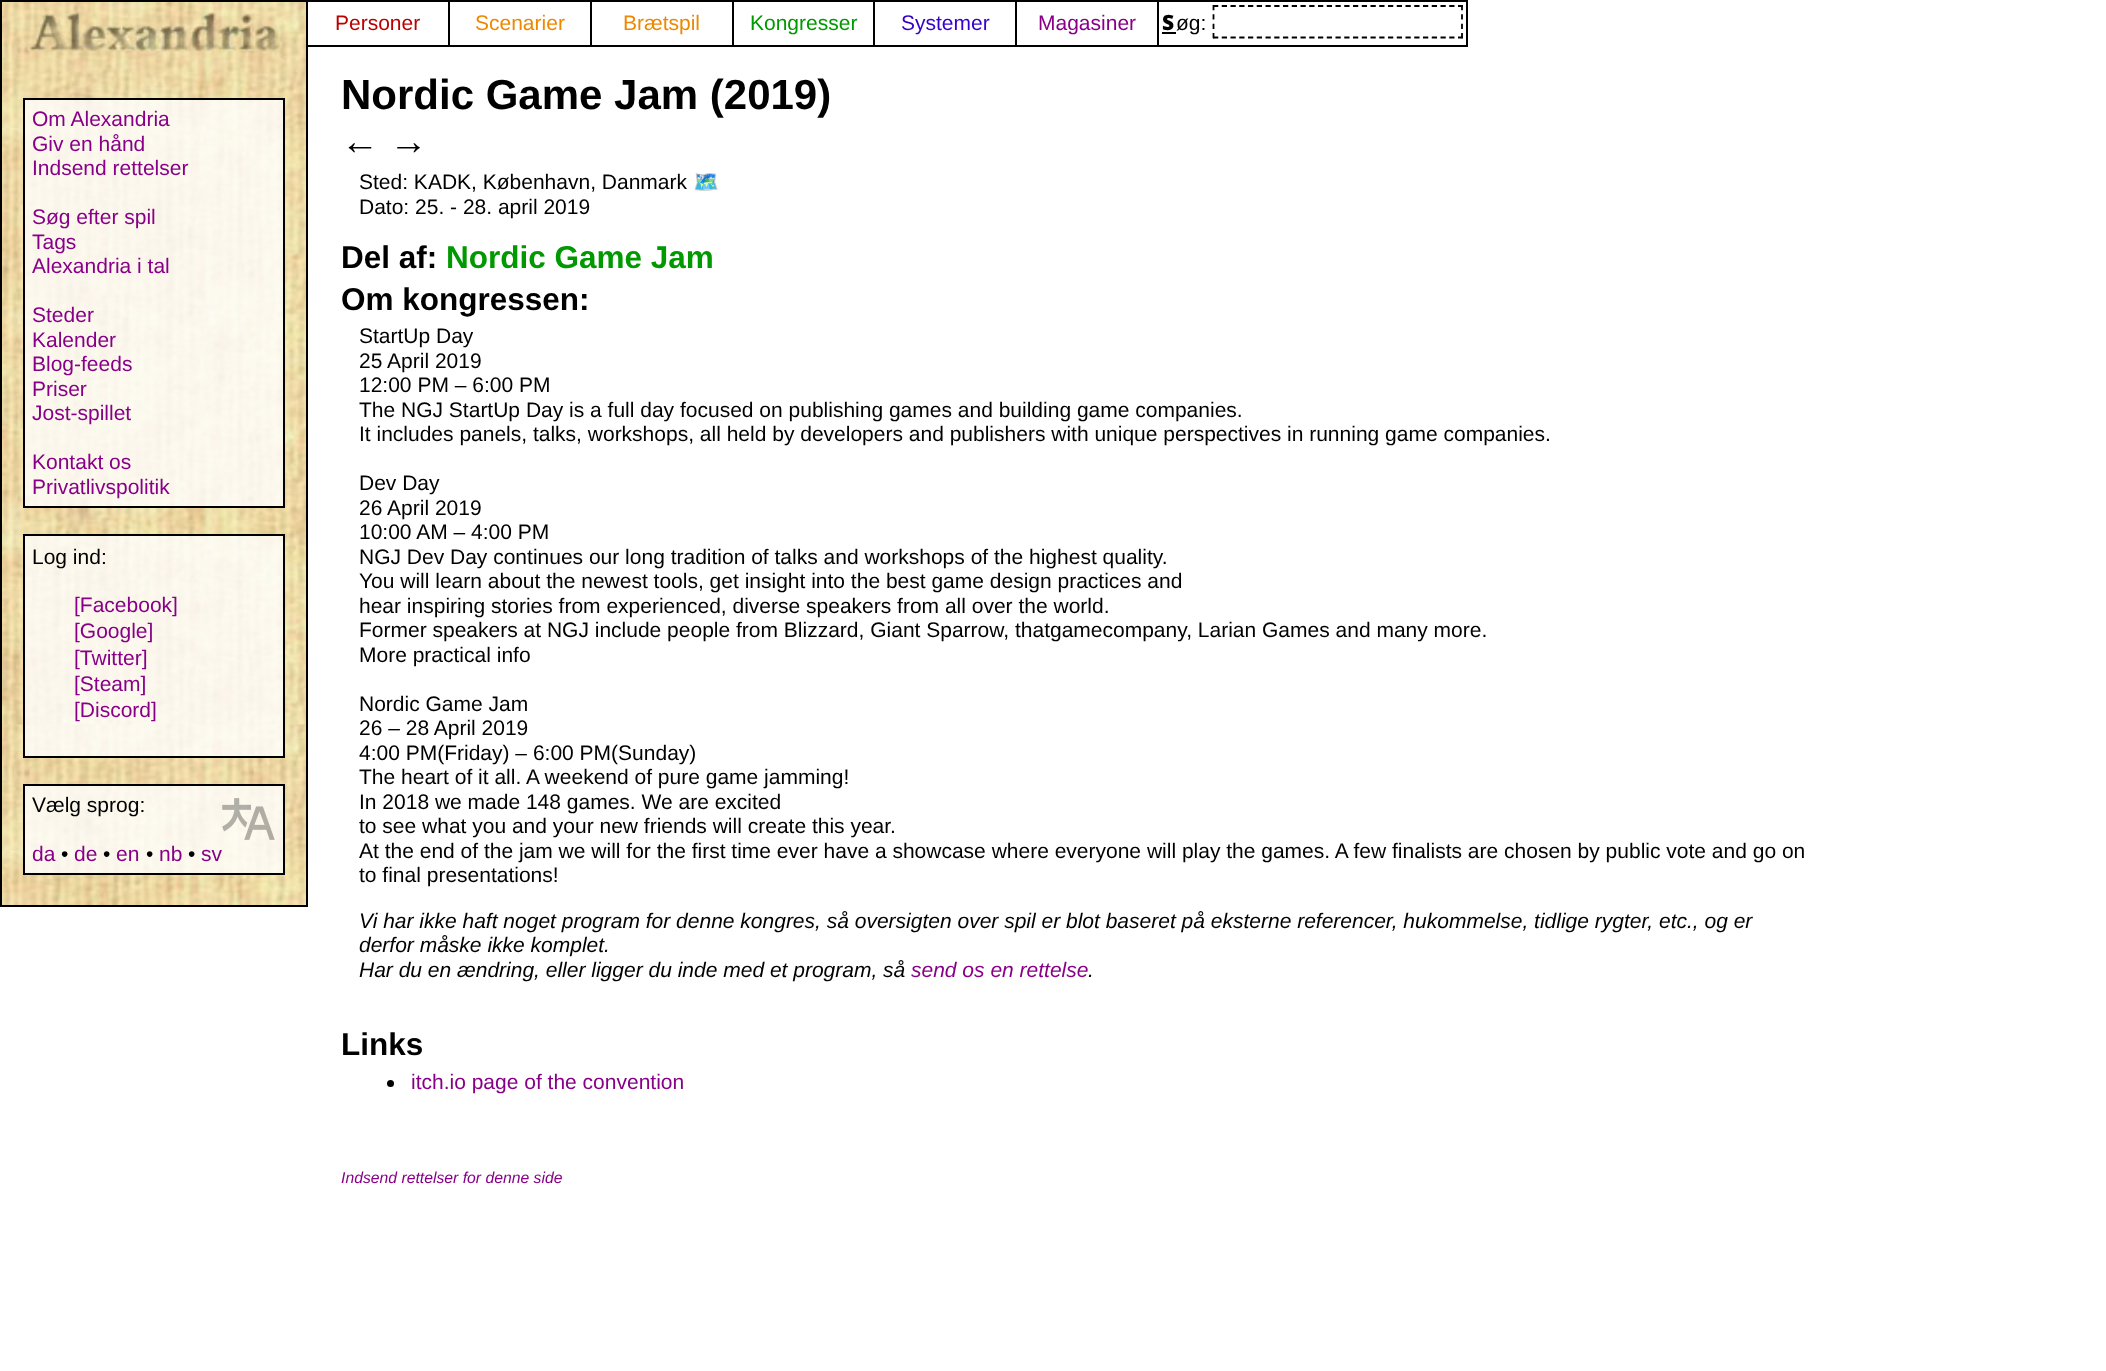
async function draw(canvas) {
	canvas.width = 2106;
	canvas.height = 1371;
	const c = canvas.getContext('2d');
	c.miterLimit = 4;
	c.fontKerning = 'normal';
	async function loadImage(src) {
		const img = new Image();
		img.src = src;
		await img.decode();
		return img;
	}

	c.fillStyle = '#fff';
	c.fillRect(0, 0, 2106, 1371);
	c.drawImage(await loadImage('img1.png'), 2, 2, 304, 903);
	c.strokeStyle = '#000';
	c.lineWidth = 2;
	c.strokeRect(1, 1, 306, 905);
	c.strokeRect(307, 1, 1160, 45);
	c.fillStyle = '#000';
	c.fillRect(448, 2, 2, 44);
	c.font = '21px Liberation Sans';
	c.fillStyle = '#b00';
	c.fillText('Personer', 335, 30);
	c.fillStyle = '#000';
	c.fillRect(590, 2, 2, 44);
	c.fillStyle = '#e80';
	c.fillText('Scenarier', 475, 30);
	c.fillStyle = '#000';
	c.fillRect(732, 2, 2, 44);
	c.fillStyle = '#e80';
	c.fillText('Brætspil', 623, 30);
	c.fillStyle = '#000';
	c.fillRect(873, 2, 2, 44);
	c.fillStyle = '#090';
	c.fillText('Kongresser', 750, 30);
	c.fillStyle = '#000';
	c.fillRect(1015, 2, 2, 44);
	c.fillStyle = '#30c';
	c.fillText('Systemer', 901, 30);
	c.fillStyle = '#000';
	c.fillRect(1157, 2, 2, 44);
	c.fillStyle = '#808';
	c.fillText('Magasiner', 1038, 30);
	c.font = '900 21px Noto Sans';
	c.fillStyle = '#000';
	c.fillText('S', 1162, 30);
	c.fillRect(1162, 32, 14, 2);
	c.font = '21px Liberation Sans';
	c.fillText('øg:', 1176, 30);
	c.beginPath();
	c.moveTo(1213, 6);
	c.lineTo(1463, 6);
	c.lineWidth = 1.8;
	c.setLineDash([5.25, 3.5]);
	c.stroke();
	c.beginPath();
	c.moveTo(1462, 5);
	c.lineTo(1462, 38.5);
	c.setLineDash([5.25, 4.08]);
	c.stroke();
	c.beginPath();
	c.moveTo(1213, 37.5);
	c.lineTo(1463, 37.5);
	c.setLineDash([5.25, 3.5]);
	c.stroke();
	c.beginPath();
	c.moveTo(1213.5, 5);
	c.lineTo(1213.5, 38.5);
	c.setLineDash([5.25, 4.08]);
	c.stroke();
	c.drawImage(await loadImage('img2.png'), 27, 12, 260, 44);
	c.fillStyle = '#ffffffcc';
	c.beginPath();
	c.rect(24, 99, 260, 408);
	c.fill();
	c.lineWidth = 2;
	c.setLineDash([]);
	c.stroke();
	c.fillStyle = '#808';
	for (const [text, x, y] of [
		['Om Alexandria', 32, 126],
		['Giv en hånd', 32, 151],
		['Indsend rettelser', 32, 175],
		['Søg efter spil', 32, 224],
		['Tags', 32, 249],
		['Alexandria i tal', 32, 273],
		['Steder', 32, 322],
		['Kalender', 32, 347],
		['Blog-feeds', 32, 371],
		['Priser', 32, 396],
		['Jost-spillet', 32, 420],
		['Kontakt os', 32, 469],
		['Privatlivspolitik', 32, 494],
	]) {
		c.fillText(text, x, y);
	}
	c.fillStyle = '#ffffffcc';
	c.beginPath();
	c.rect(24, 535, 260, 222);
	c.fill();
	c.stroke();
	c.fillStyle = '#000';
	c.fillText('Log ind:', 32, 564);
	c.fillStyle = '#808';
	for (const [text, x, y] of [
		['[Facebook]', 74, 612],
		['[Google]', 74, 638],
		['[Twitter]', 74, 665],
		['[Steam]', 74, 691],
		['[Discord]', 74, 717],
	]) {
		c.fillText(text, x, y);
	}
	c.fillStyle = '#ffffffcc';
	c.beginPath();
	c.rect(24, 785, 260, 89);
	c.fill();
	c.stroke();
	c.fillStyle = '#000';
	c.fillText('Vælg sprog:', 32, 812);
	c.drawImage(await loadImage('img3.png'), 222, 798, 53, 42);
	c.fillStyle = '#808';
	c.fillText('da', 32, 861);
	c.fillStyle = '#000';
	c.fillText('•', 61, 861);
	c.fillStyle = '#808';
	c.fillText('de', 74, 861);
	c.fillStyle = '#000';
	c.fillText('•', 103, 861);
	c.fillStyle = '#808';
	c.fillText('en', 116, 861);
	c.fillStyle = '#000';
	c.fillText('•', 146, 861);
	c.fillStyle = '#808';
	c.fillText('nb', 159, 861);
	c.fillStyle = '#000';
	c.fillText('•', 188, 861);
	c.fillStyle = '#808';
	c.fillText('sv', 201, 861);
	c.font = 'bold 42px Liberation Sans';
	c.fillStyle = '#000';
	c.fillText('Nordic Game Jam (2019)', 341, 109);
	c.font = 'bold 38px Liberation Sans';
	c.fillText('← →', 341, 154);
	c.font = '21px Liberation Sans';
	c.fillText('Sted: KADK, København, Danmark', 359, 189);
	c.font = '21px Noto Color Emoji';
	c.fillStyle = '#808';
	c.fillText('🗺️', 693, 189);
	c.font = '21px Liberation Sans';
	c.fillStyle = '#000';
	c.fillText('Dato: 25. - 28. april 2019', 359, 214);
	c.font = 'bold 31.5px Liberation Sans';
	c.fillText('Del af:', 341, 268);
	c.fillStyle = '#090';
	c.fillText('Nordic Game Jam', 446, 268);
	c.fillStyle = '#000';
	c.fillText('Om kongressen:', 341, 310);
	c.font = '21px Liberation Sans';
	for (const [text, x, y] of [
		['StartUp Day', 359, 343],
		['25 April 2019', 359, 368],
		['12:00 PM – 6:00 PM', 359, 392],
		['The NGJ StartUp Day is a full day focused on publishing games and building game companies.', 359, 417],
		['It includes panels, talks, workshops, all held by developers and publishers with unique perspectives in running game companies.', 359, 441],
		['Dev Day', 359, 490],
		['26 April 2019', 359, 515],
		['10:00 AM – 4:00 PM', 359, 539],
		['NGJ Dev Day continues our long tradition of talks and workshops of the highest quality.', 359, 564],
		['You will learn about the newest tools, get insight into the best game design practices and', 359, 588],
		['hear inspiring stories from experienced, diverse speakers from all over the world.', 359, 613],
		['Former speakers at NGJ include people from Blizzard, Giant Sparrow, thatgamecompany, Larian Games and many more.', 359, 637],
		['More practical info', 359, 662],
		['Nordic Game Jam', 359, 711],
		['26 – 28 April 2019', 359, 735],
		['4:00 PM(Friday) – 6:00 PM(Sunday)', 359, 760],
		['The heart of it all. A weekend of pure game jamming!', 359, 784],
		['In 2018 we made 148 games. We are excited', 359, 809],
		['to see what you and your new friends will create this year.', 359, 833],
		['At the end of the jam we will for the first time ever have a showcase where everyone will play the games. A few finalists are chosen by public vote and go on', 359, 858],
		['to final presentations!', 359, 882],
	]) {
		c.fillText(text, x, y);
	}
	c.font = 'italic 21px Liberation Sans';
	for (const [text, x, y] of [
		['Vi har ikke haft noget program for denne kongres, så oversigten over spil er blot baseret på eksterne referencer, hukommelse, tidlige rygter, etc., og er', 359, 928],
		['derfor måske ikke komplet.', 359, 952],
		['Har du en ændring, eller ligger du inde med et program, så', 359, 977],
	]) {
		c.fillText(text, x, y);
	}
	c.fillStyle = '#808';
	c.fillText('send os en rettelse', 911, 977);
	c.fillStyle = '#000';
	c.fillText('.', 1088, 977);
	c.font = 'bold 31.5px Liberation Sans';
	c.fillText('Links', 341, 1055);
	c.beginPath();
	c.arc(390.5, 1083.5, 3.5, 0, 2 * Math.PI);
	c.fill();
	c.font = '21px Liberation Sans';
	c.fillStyle = '#808';
	c.fillText('itch.io page of the convention', 411, 1089);
	c.font = 'italic 15.75px Liberation Sans';
	c.fillText('Indsend rettelser for denne side', 341, 1183);
}

draw(document.querySelector('canvas'));
